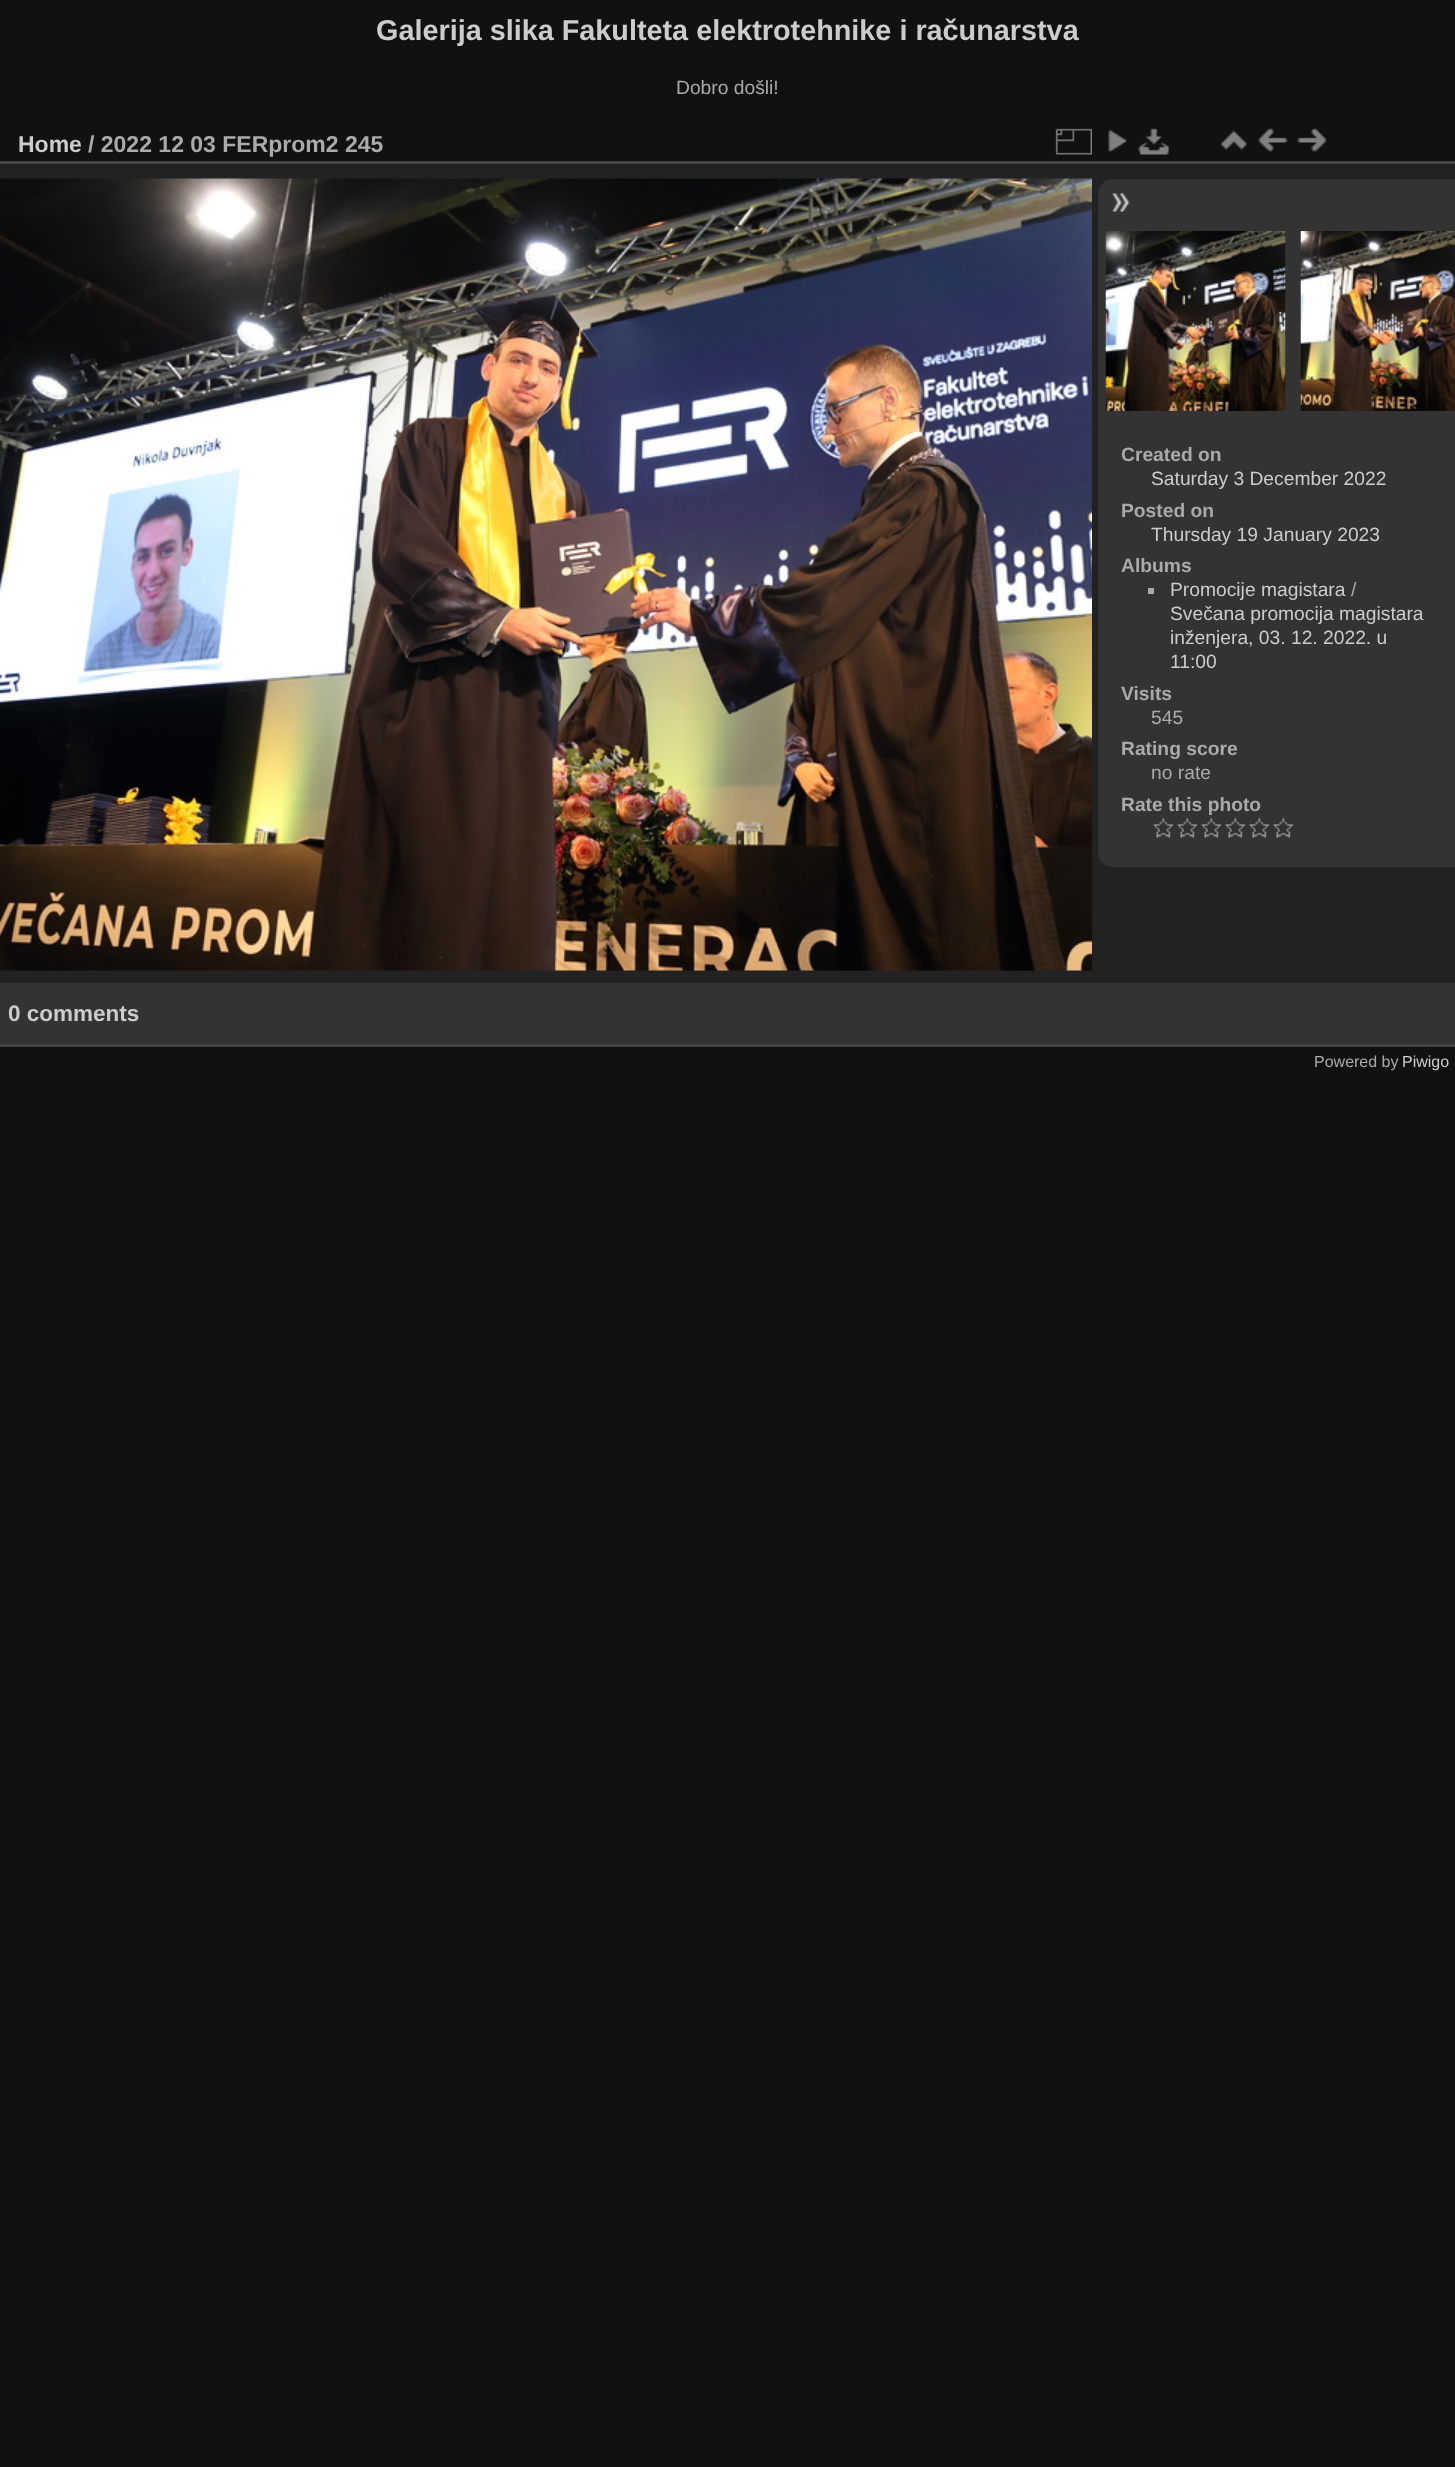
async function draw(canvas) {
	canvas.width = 1455;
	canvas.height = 2467;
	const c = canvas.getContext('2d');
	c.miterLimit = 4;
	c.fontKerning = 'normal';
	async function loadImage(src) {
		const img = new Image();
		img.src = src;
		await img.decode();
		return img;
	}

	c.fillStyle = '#111';
	c.fillRect(0, 0, 1455, 2467);
	c.font = 'bold 28.8px Liberation Sans';
	c.fillStyle = '#ccc';
	c.fillText('Galerija slika Fakulteta elektrotehnike i računarstva', 376, 40);
	c.font = '19.25px Liberation Sans';
	c.fillStyle = '#aaa';
	c.fillText('Dobro došli!', 676, 94);
	for (const [x, y, w, h, color] of [
		[0, 164, 1455, 819, '#222'],
		[0, 1044, 1455, 3, '#444'],
		[0, 161, 1455, 3, '#444'],
	]) {
		c.fillStyle = color;
		c.fillRect(x, y, w, h);
	}
	c.font = 'bold 23px Liberation Sans';
	c.fillStyle = '#ccc';
	c.fillText('Home', 18, 152);
	c.fillStyle = '#aaa';
	c.fillText('/ 2022 12 03 FERprom2 245', 88, 152);
	c.drawImage(await loadImage('img1.png'), 1055, 128, 37, 27);
	c.drawImage(await loadImage('img2.png'), 1108, 130, 19, 22);
	c.drawImage(await loadImage('img3.png'), 1138, 128, 32, 27);
	c.drawImage(await loadImage('img4.png'), 1220, 130, 27, 21);
	c.drawImage(await loadImage('img5.png'), 1258, 128, 30, 24);
	c.drawImage(await loadImage('img6.png'), 1297, 128, 30, 24);
	c.drawImage(await loadImage('img7.png'), 0, 178, 1092, 793);
	c.fillStyle = '#333';
	c.beginPath();
	c.roundRect(1098, 179, 357, 688, [15, 0, 0, 15]);
	c.fill();
	c.drawImage(await loadImage('img8.png'), 1112, 193, 18, 19);
	c.drawImage(await loadImage('img9.png'), 1105, 231, 181, 180);
	c.drawImage(await loadImage('img10.png'), 1300, 231, 155, 180);
	c.font = 'bold 19.25px Liberation Sans';
	c.fillStyle = '#aaa';
	c.fillText('Created on', 1121, 461);
	c.font = '19.25px Liberation Sans';
	c.fillStyle = '#ccc';
	c.fillText('Saturday 3 December 2022', 1151, 485);
	c.font = 'bold 19.25px Liberation Sans';
	c.fillStyle = '#aaa';
	c.fillText('Posted on', 1121, 517);
	c.font = '19.25px Liberation Sans';
	c.fillStyle = '#ccc';
	c.fillText('Thursday 19 January 2023', 1151, 541);
	c.font = 'bold 19.25px Liberation Sans';
	c.fillStyle = '#aaa';
	c.fillText('Albums', 1121, 572);
	c.fillRect(1148, 588, 6, 6);
	c.font = '19.25px Liberation Sans';
	c.fillStyle = '#ccc';
	c.fillText('Promocije magistara', 1170, 596);
	c.fillStyle = '#aaa';
	c.fillText('/', 1351, 596);
	c.fillStyle = '#ccc';
	for (const [text, x, y] of [
		['Svečana promocija magistara', 1170, 620],
		['inženjera, 03. 12. 2022. u', 1170, 644],
		['11:00', 1170, 668],
	]) {
		c.fillText(text, x, y);
	}
	c.font = 'bold 19.25px Liberation Sans';
	c.fillStyle = '#aaa';
	c.fillText('Visits', 1121, 700);
	c.font = '19.25px Liberation Sans';
	c.fillText('545', 1151, 724);
	c.font = 'bold 19.25px Liberation Sans';
	c.fillText('Rating score', 1121, 755);
	c.font = '19.25px Liberation Sans';
	c.fillText('no rate', 1151, 779);
	c.font = 'bold 19.25px Liberation Sans';
	c.fillText('Rate this photo', 1121, 811);
	c.drawImage(await loadImage('img11.png'), 1153, 818, 21, 20);
	c.drawImage(await loadImage('img11.png'), 1177, 818, 21, 20);
	c.drawImage(await loadImage('img11.png'), 1201, 818, 21, 20);
	c.drawImage(await loadImage('img12.png'), 1225, 818, 21, 20);
	c.drawImage(await loadImage('img12.png'), 1249, 818, 21, 20);
	c.drawImage(await loadImage('img12.png'), 1273, 818, 21, 20);
	c.fillStyle = '#333';
	c.fillRect(0, 983, 1455, 61);
	c.font = 'bold 22.5px Liberation Sans';
	c.fillStyle = '#ccc';
	c.fillText('0 comments', 8, 1021);
	c.font = '16px Liberation Sans';
	c.fillStyle = '#aaa';
	c.fillText('Powered by', 1314, 1067);
	c.fillStyle = '#ccc';
	c.fillText('Piwigo', 1402, 1067);
}

draw(document.querySelector('canvas'));
